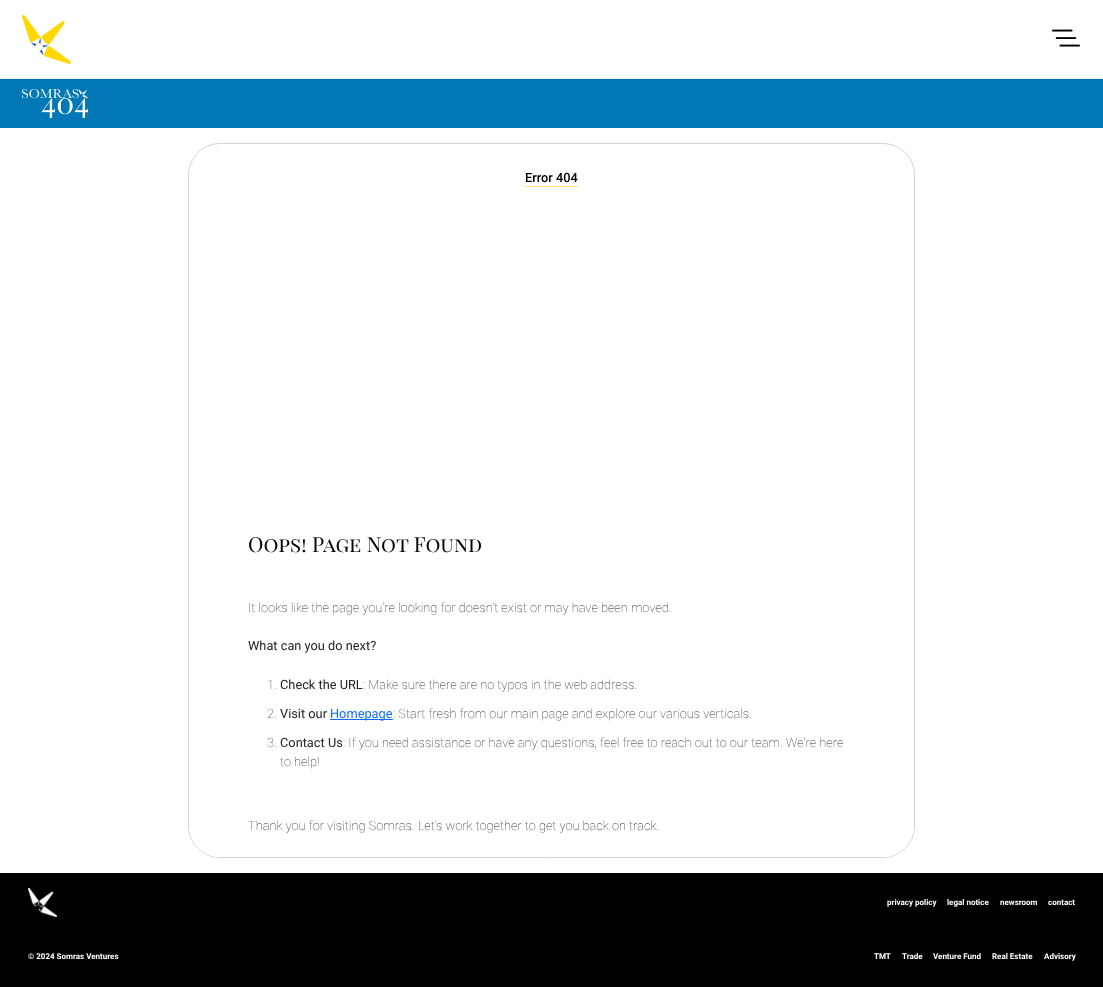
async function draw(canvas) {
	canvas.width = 1103;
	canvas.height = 987;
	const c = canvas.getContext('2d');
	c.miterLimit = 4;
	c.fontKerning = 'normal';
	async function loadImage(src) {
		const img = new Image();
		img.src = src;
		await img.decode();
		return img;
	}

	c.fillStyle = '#fff';
	c.fillRect(0, 0, 1103, 987);
	c.drawImage(await loadImage('img1.png'), 22, 15, 49, 49);
	c.drawImage(await loadImage('img2.png'), 1052, 29, 28, 18);
	c.fillStyle = '#0177b5';
	c.fillRect(0, 79, 1103, 49);
	c.drawImage(await loadImage('img3.png'), 22, 89, 66, 29);
	c.beginPath();
	c.roundRect(188.5, 143.5, 726, 714, 31.5);
	c.strokeStyle = '#d2d2d2';
	c.stroke();
	c.fillStyle = '#fae57a';
	c.fillRect(525, 186, 53, 1);
	c.font = '500 12.8px Roboto';
	c.fillStyle = '#000';
	c.fillText('Error 404', 525, 182);
	c.fillStyle = '#fff';
	c.beginPath();
	c.roundRect(189, 509, 725, 348, [0, 0, 31, 31]);
	c.fill();
	c.font = '20.75px Playfair Display SC';
	c.fillStyle = '#000';
	c.fillText('Oops! Page Not Found', 248, 552);
	c.font = '100 12.8px Roboto';
	c.fillStyle = '#232323';
	c.fillText('It looks like the page you’re looking for doesn’t exist or may have been moved.', 248, 612);
	c.font = '12.8px Roboto';
	c.fillText('What can you do next?', 248, 650);
	c.font = '100 12.8px Roboto';
	c.fillStyle = '#212529';
	c.fillText('1.', 267, 689);
	c.font = '12.8px Roboto';
	c.fillText('Check the URL', 280, 689);
	c.font = '100 12.8px Roboto';
	c.fillText(': Make sure there are no typos in the web address.', 363, 689);
	c.fillText('2.', 267, 718);
	c.font = '12.8px Roboto';
	c.fillText('Visit our', 280, 718);
	c.fillStyle = '#0d6efd';
	c.fillRect(330, 719, 63, 1);
	c.fillText('Homepage', 330, 718);
	c.font = '100 12.8px Roboto';
	c.fillStyle = '#212529';
	c.fillText(': Start fresh from our main page and explore our various verticals.', 393, 718);
	c.fillText('3.', 267, 747);
	c.font = '12.8px Roboto';
	c.fillText('Contact Us', 280, 747);
	c.font = '100 12.8px Roboto';
	c.fillText(': If you need assistance or have any questions, feel free to reach out to our team. We\'re here', 343, 747);
	c.fillText('to help!', 280, 766);
	c.fillStyle = '#232323';
	c.fillText('Thank you for visiting Somras. Let’s work together to get you back on track.', 248, 830);
	c.fillStyle = '#000';
	c.fillRect(0, 873, 1103, 114);
	c.drawImage(await loadImage('img4.png'), 28, 888, 29, 29);
	c.font = 'bold 8px Roboto';
	c.fillStyle = '#fff';
	for (const [text, x, y] of [
		['privacy policy', 887, 905],
		['legal notice', 947, 905],
		['newsroom', 1000, 905],
		['contact', 1048, 905],
		['© 2024 Somras Ventures', 28, 959],
		['TMT', 874, 959],
		['Trade', 902, 959],
		['Venture Fund', 933, 959],
		['Real Estate', 992, 959],
		['Advisory', 1044, 959],
	]) {
		c.fillText(text, x, y);
	}
}

draw(document.querySelector('canvas'));
